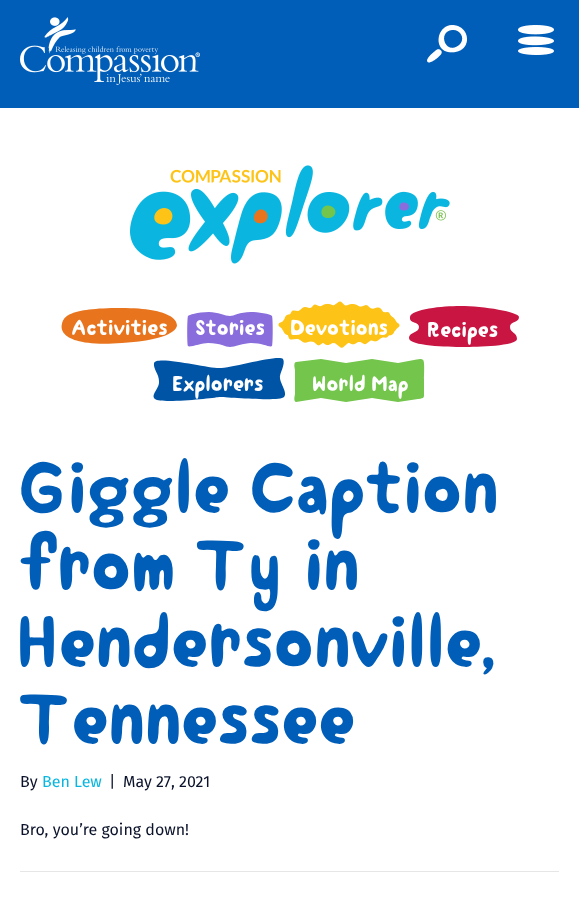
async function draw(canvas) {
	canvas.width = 579;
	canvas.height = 924;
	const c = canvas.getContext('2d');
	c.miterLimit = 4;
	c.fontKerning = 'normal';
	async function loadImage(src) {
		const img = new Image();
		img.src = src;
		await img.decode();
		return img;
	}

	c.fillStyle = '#fff';
	c.fillRect(0, 0, 579, 924);
	c.fillStyle = '#005eb8';
	c.fillRect(0, 0, 579, 108);
	c.drawImage(await loadImage('img1.png'), 20, 17, 180, 68);
	c.drawImage(await loadImage('img2.png'), 427, 25, 40, 38);
	c.drawImage(await loadImage('img3.png'), 518, 25, 36, 30);
	c.drawImage(await loadImage('img4.png'), 130, 165, 320, 99);
	c.fillStyle = '#e8741e';
	c.beginPath();
	c.moveTo(62, 324);
	c.bezierCurveTo(64, 317, 67, 308, 121, 308);
	c.bezierCurveTo(174, 308, 177, 322, 177, 325);
	c.bezierCurveTo(177, 328, 173, 340, 122, 343);
	c.bezierCurveTo(53, 348, 62, 324, 62, 324);
	c.closePath();
	c.fill();
	c.font = '19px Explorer';
	c.fillStyle = '#fff';
	c.fillText('Activities', 72, 335);
	c.fillStyle = '#896ddd';
	c.beginPath();
	c.moveTo(188, 316);
	c.bezierCurveTo(189, 315, 197, 312, 209, 312);
	c.bezierCurveTo(218, 312, 225, 316, 230, 316);
	c.bezierCurveTo(234, 316, 239, 312, 251, 312);
	c.bezierCurveTo(257, 312, 271, 314, 272, 316);
	c.bezierCurveTo(273, 318, 273, 345, 272, 346);
	c.bezierCurveTo(270, 348, 263, 343, 251, 343);
	c.bezierCurveTo(244, 343, 234, 347, 230, 347);
	c.bezierCurveTo(225, 347, 221, 343, 208, 343);
	c.bezierCurveTo(202, 343, 189, 348, 188, 346);
	c.bezierCurveTo(187, 345, 187, 318, 188, 316);
	c.closePath();
	c.fill();
	c.fillStyle = '#fff';
	c.fillText('Stories', 196, 335);
	c.drawImage(await loadImage('img5.png'), 278, 301, 122, 47);
	c.fillText('Devotions', 291, 335);
	c.fillStyle = '#c81542';
	c.beginPath();
	c.moveTo(460, 306);
	c.bezierCurveTo(484, 306, 519, 312, 519, 317);
	c.bezierCurveTo(519, 323, 510, 321, 510, 327);
	c.bezierCurveTo(510, 333, 517, 332, 517, 339);
	c.bezierCurveTo(517, 346, 477, 347, 463, 347);
	c.bezierCurveTo(448, 347, 409, 346, 409, 338);
	c.bezierCurveTo(409, 332, 419, 333, 419, 327);
	c.bezierCurveTo(419, 321, 409, 324, 410, 317);
	c.bezierCurveTo(411, 309, 443, 306, 460, 306);
	c.closePath();
	c.fill();
	c.fillStyle = '#fff';
	c.fillText('Recipes', 428, 337);
	c.fillStyle = '#0054a6';
	c.beginPath();
	c.moveTo(154, 363);
	c.bezierCurveTo(156, 355, 207, 368, 219, 368);
	c.bezierCurveTo(232, 368, 279, 354, 283, 359);
	c.bezierCurveTo(286, 364, 279, 374, 280, 378);
	c.bezierCurveTo(280, 383, 288, 393, 284, 397);
	c.bezierCurveTo(280, 402, 225, 397, 219, 397);
	c.bezierCurveTo(214, 398, 161, 404, 155, 399);
	c.bezierCurveTo(150, 395, 160, 388, 159, 381);
	c.bezierCurveTo(159, 374, 153, 369, 154, 363);
	c.closePath();
	c.fill();
	c.fillStyle = '#fff';
	c.fillText('Explorers', 173, 391);
	c.fillStyle = '#73c54b';
	c.beginPath();
	c.moveTo(296, 362);
	c.lineTo(321, 359);
	c.lineTo(346, 363);
	c.lineTo(372, 359);
	c.lineTo(398, 363);
	c.lineTo(414, 360);
	c.bezierCurveTo(416, 360, 421, 358, 423, 360);
	c.bezierCurveTo(425, 361, 424, 376, 424, 379);
	c.lineTo(424, 391);
	c.bezierCurveTo(424, 398, 425, 398, 418, 399);
	c.lineTo(398, 402);
	c.lineTo(372, 398);
	c.lineTo(346, 402);
	c.lineTo(321, 398);
	c.lineTo(296, 402);
	c.bezierCurveTo(293, 401, 295, 395, 295, 394);
	c.lineTo(295, 370);
	c.bezierCurveTo(295, 369, 293, 363, 296, 362);
	c.closePath();
	c.fill();
	c.fillStyle = '#fff';
	c.fillText('World Map', 313, 391);
	c.font = '64px Explorer';
	c.fillStyle = '#005eb8';
	for (const [text, x, y] of [
		['Giggle Caption', 20, 513],
		['from Ty in', 20, 590],
		['Hendersonville,', 20, 667],
		['Tennessee', 20, 744],
	]) {
		c.fillText(text, x, y);
	}
	c.font = '16px Fira Sans';
	c.fillStyle = '#0b132b';
	c.fillText('By', 20, 787);
	c.fillStyle = '#0ab6df';
	c.fillText('Ben Lew', 42, 787);
	c.fillStyle = '#0b132b';
	for (const [text, x, y] of [
		['|', 109, 787],
		['May 27, 2021', 123, 787],
		['Bro, you’re going down!', 20, 835],
	]) {
		c.fillText(text, x, y);
	}
	c.fillStyle = '#e6e6e6';
	c.fillRect(20, 871, 539, 1);
}

draw(document.querySelector('canvas'));
